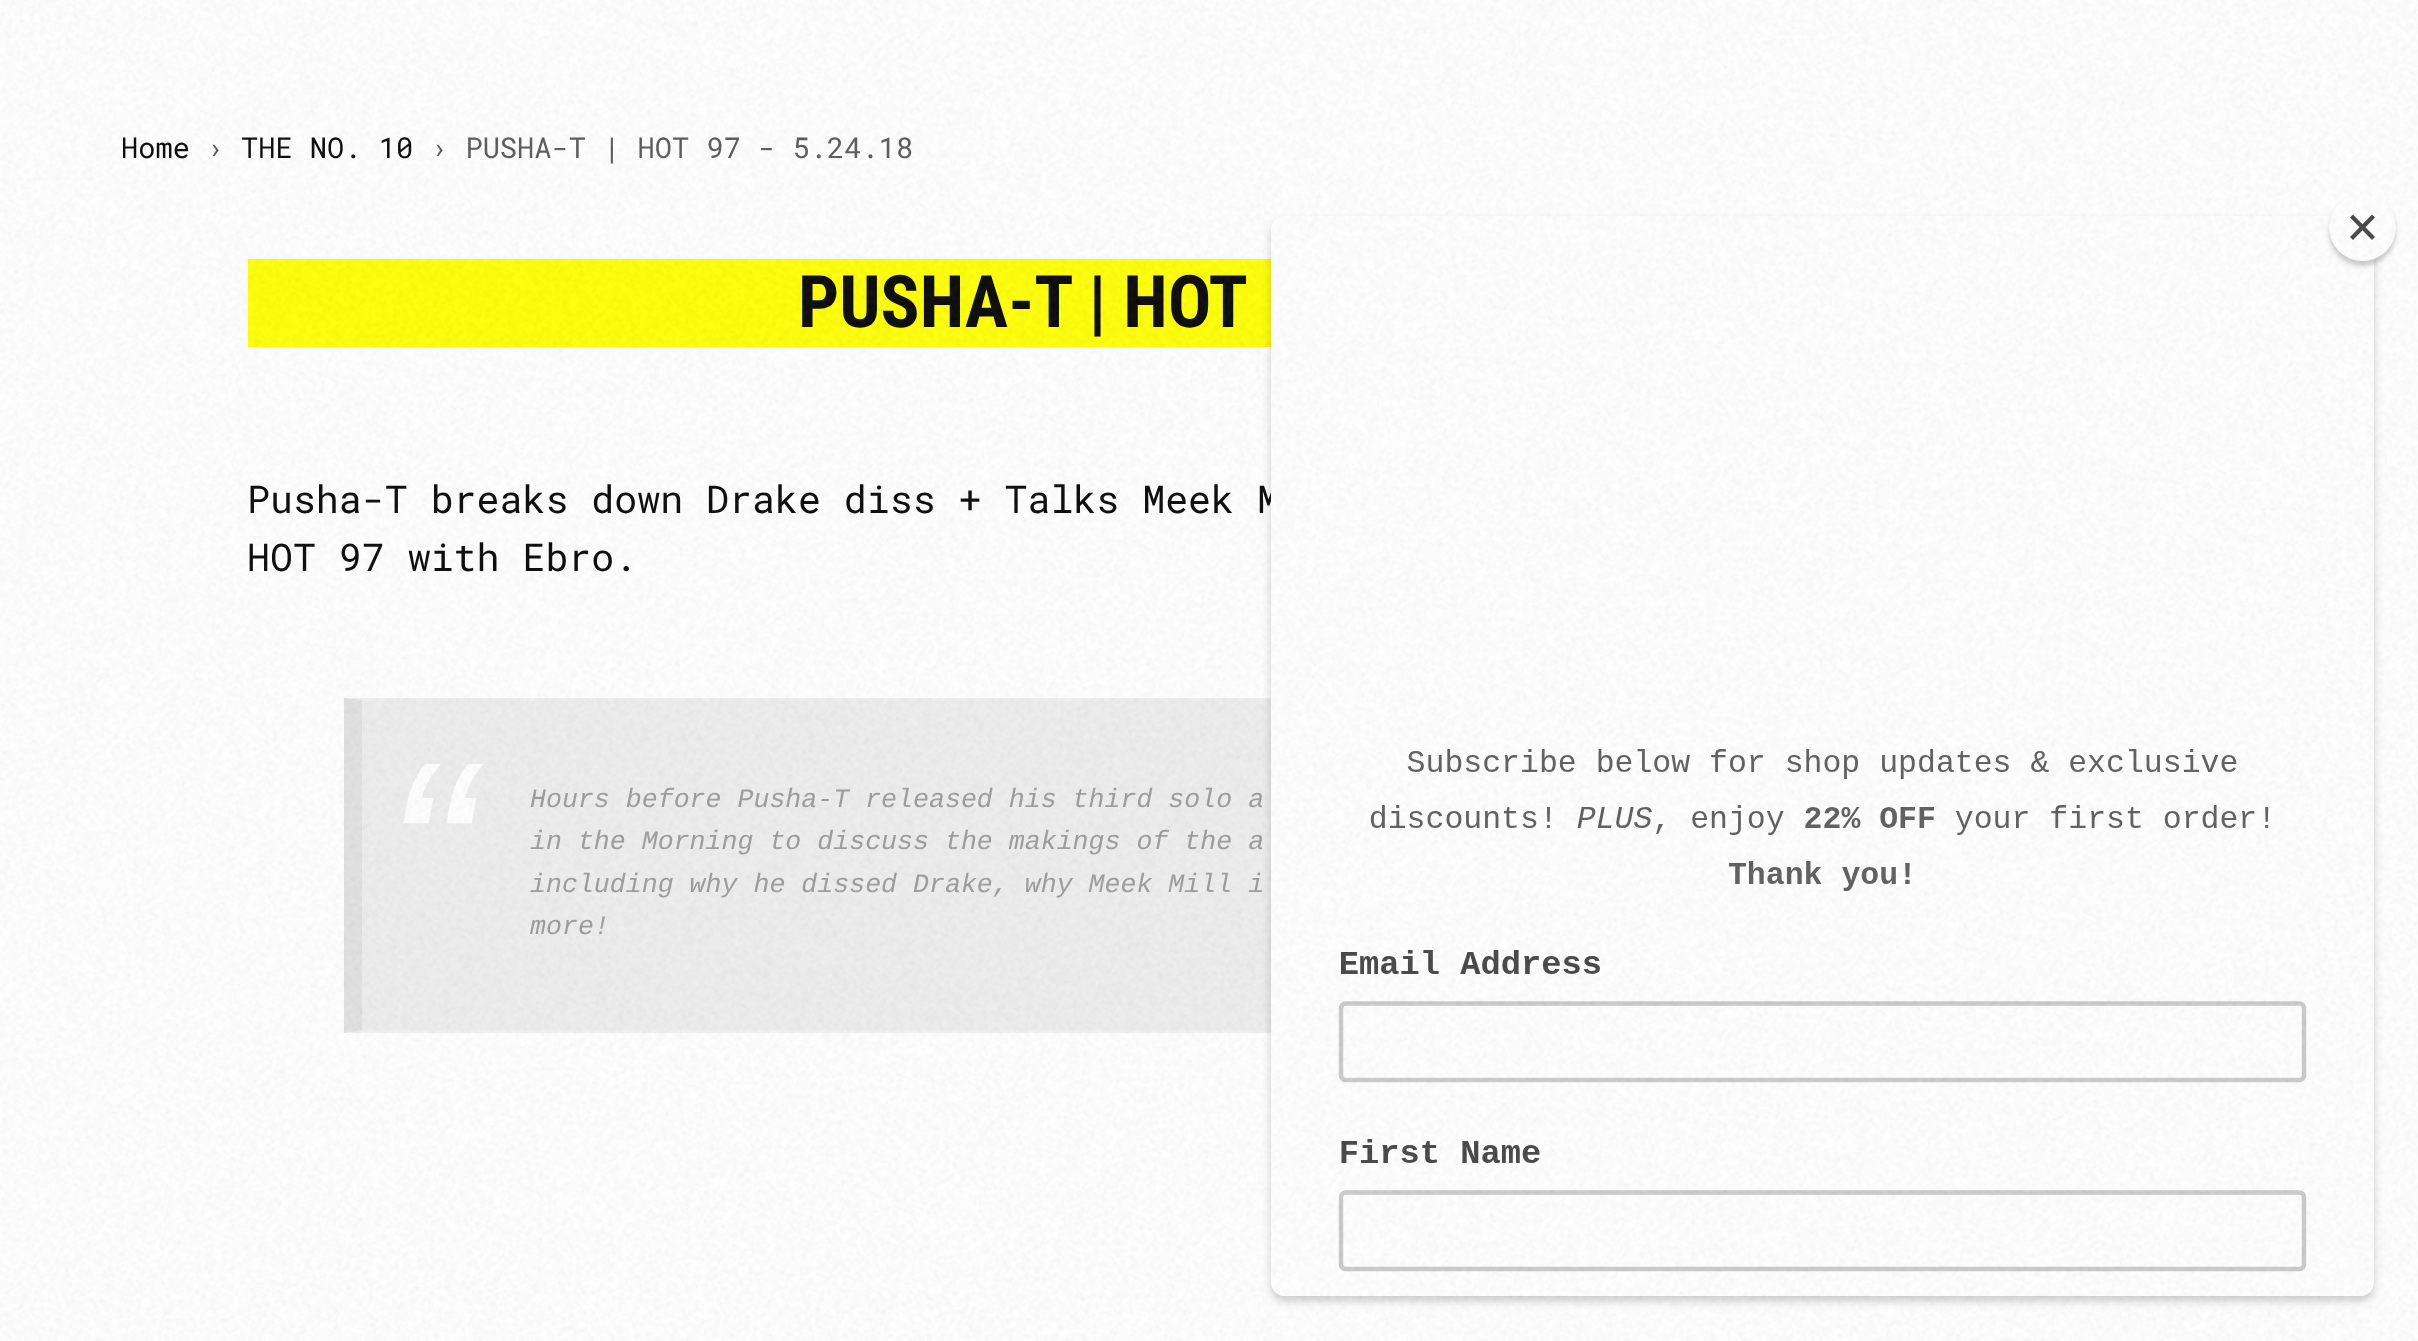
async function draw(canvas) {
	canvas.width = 2418;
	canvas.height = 1341;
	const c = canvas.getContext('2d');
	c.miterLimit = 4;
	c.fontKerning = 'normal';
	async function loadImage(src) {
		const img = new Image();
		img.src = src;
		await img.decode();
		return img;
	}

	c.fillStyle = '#fff';
	c.fillRect(0, 0, 2418, 1341);
	c.font = '28.7px Roboto Mono';
	c.fillStyle = '#000';
	c.fillText('Home', 121, 158);
	c.fillStyle = '#555';
	c.fillText('›', 207, 158);
	c.fillStyle = '#000';
	c.fillText('THE NO. 10', 241, 158);
	c.fillStyle = '#555';
	c.fillText('› PUSHA-T | HOT 97 - 5.24.18', 431, 158);
	c.fillStyle = '#ff0';
	c.fillRect(248, 259, 1023, 88);
	c.font = 'bold 72.5px Roboto Condensed';
	c.fillStyle = '#000';
	c.fillText('PUSHA-T | HOT', 798, 327);
	c.font = '38.25px Roboto Mono';
	c.fillText('Pusha-T breaks down Drake diss + Talks Meek M', 247, 513);
	c.fillText('HOT 97 with Ebro.', 247, 571);
	c.fillStyle = '#ededed';
	c.fillRect(362, 700, 909, 330);
	c.fillStyle = '#f0f0f0';
	c.beginPath();
	c.moveTo(344, 698);
	c.lineTo(2074, 698);
	c.lineTo(2074, 700);
	c.lineTo(362, 700);
	c.closePath();
	c.fill();
	c.beginPath();
	c.moveTo(2074, 1033);
	c.lineTo(344, 1033);
	c.lineTo(362, 1030);
	c.lineTo(2074, 1030);
	c.closePath();
	c.fill();
	c.fillStyle = '#e0e0e0';
	c.beginPath();
	c.moveTo(344, 1033);
	c.lineTo(344, 698);
	c.lineTo(362, 700);
	c.lineTo(362, 1030);
	c.closePath();
	c.fill();
	c.font = 'italic 266px Liberation Sans';
	c.fillStyle = '#fff';
	c.fillText('“', 384, 947);
	c.font = 'italic 26.6px Liberation Mono';
	c.fillStyle = '#999';
	for (const [text, x, y] of [
		['Hours before Pusha-T released his third solo a', 530, 807],
		['in the Morning to discuss the makings of the a', 530, 849],
		['including why he dissed Drake, why Meek Mill i', 530, 892],
		['more!', 530, 934],
	]) {
		c.fillText(text, x, y);
	}
	c.fillStyle = '#00000033';
	c.filter = 'blur(4.5px)';
	c.beginPath();
	c.roundRect(1271, 221, 1103, 1080, 14);
	c.fill();
	c.filter = 'none';
	c.fillStyle = '#fff';
	c.beginPath();
	c.roundRect(1271, 216, 1103, 1080, 14);
	c.fill();
	c.fillStyle = '#00000033';
	c.filter = 'blur(2px)';
	c.beginPath();
	c.roundRect(2329, 198, 67, 68, 33.5);
	c.fill();
	c.filter = 'none';
	c.fillStyle = '#fff';
	c.beginPath();
	c.arc(2362.5, 227.5, 33.5, 0, 2 * Math.PI);
	c.fill();
	c.fillStyle = '#414141';
	c.beginPath();
	c.moveTo(2372, 214.5);
	c.lineTo(2375, 217.5);
	c.lineTo(2353, 240);
	c.lineTo(2350, 237);
	c.closePath();
	c.fill();
	c.beginPath();
	c.moveTo(2350, 217.5);
	c.lineTo(2353, 214.5);
	c.lineTo(2375, 237);
	c.lineTo(2372, 240);
	c.closePath();
	c.fill();
	c.drawImage(await loadImage('img2.png'), 1272, 749, 1101, 547);
	c.drawImage(await loadImage('img1.png'), 0, 0, 2418, 1341);
}

draw(document.querySelector('canvas'));
